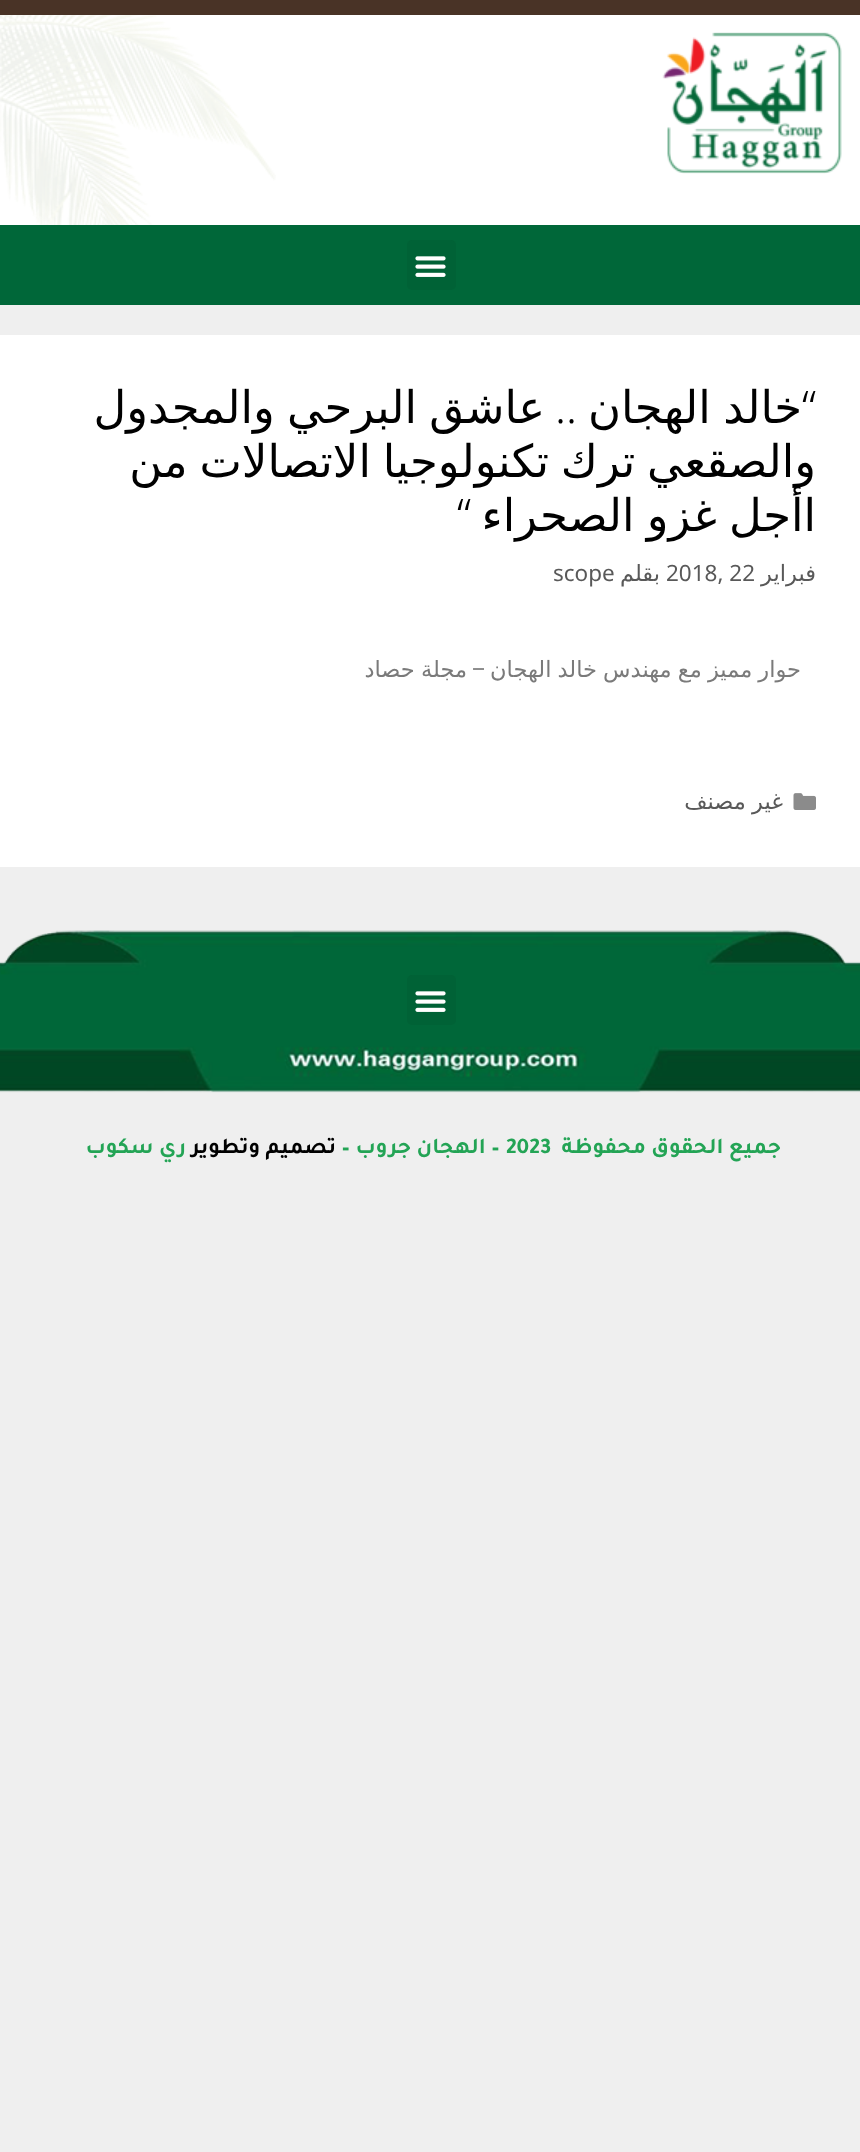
async function draw(canvas) {
	canvas.width = 860;
	canvas.height = 2152;
	const c = canvas.getContext('2d');
	c.miterLimit = 4;
	c.fontKerning = 'normal';
	async function loadImage(src) {
		const img = new Image();
		img.src = src;
		await img.decode();
		return img;
	}

	c.fillStyle = '#efefef';
	c.fillRect(0, 0, 860, 2152);
	c.fillStyle = '#493326';
	c.fillRect(0, 0, 860, 15);
	c.fillStyle = '#fff';
	c.fillRect(0, 15, 860, 210);
	c.drawImage(await loadImage('img1.png'), 0, 15, 276, 210);
	c.drawImage(await loadImage('img2.png'), 662, 32, 180, 142);
	c.fillStyle = '#006739';
	c.fillRect(0, 225, 860, 80);
	c.fillStyle = '#006236';
	c.beginPath();
	c.roundRect(407, 240, 49, 50, 5);
	c.fill();
	c.drawImage(await loadImage('img3.png'), 415, 256, 31, 21);
	c.fillStyle = '#fff';
	c.fillRect(0, 335, 860, 532);
	c.direction = 'rtl';
	c.font = '300 45px Noto Sans';
	c.fillStyle = '#000';
	c.fillText('“', 816, 423);
	c.wordSpacing = '-2px';
	c.font = '45px DejaVu Sans';
	c.fillText('خالد الهجان', 802, 423);
	c.fillText('عاشق البرحي والمجدول', 545, 423);
	c.wordSpacing = '0px';
	c.font = '300 45px Noto Sans';
	c.fillText('..', 577, 423);
	c.wordSpacing = '-2.5px';
	c.font = '45px DejaVu Sans';
	c.fillText('والصقعي ترك تكنولوجيا الاتصالات من', 816, 477);
	c.wordSpacing = '-2px';
	c.fillText('اأجل غزو الصحراء', 816, 531);
	c.wordSpacing = '0px';
	c.font = '300 45px Noto Sans';
	c.fillText('“', 471, 531);
	c.font = '22.5px DejaVu Sans';
	c.fillStyle = '#595959';
	c.fillText('فبراير', 816, 581);
	c.direction = 'ltr';
	c.font = '22.5px Noto Sans';
	c.fillText('2018, 22', 666, 581);
	c.direction = 'rtl';
	c.font = '22.5px DejaVu Sans';
	c.fillText('بقلم', 660, 581);
	c.direction = 'ltr';
	c.font = '22.5px Noto Sans';
	c.fillText('scope', 553, 581);
	c.wordSpacing = '-1px';
	c.direction = 'rtl';
	c.font = '22.5px DejaVu Sans';
	c.fillStyle = '#7a7a7a';
	c.fillText('حوار مميز مع مهندس خالد الهجان', 801, 677);
	c.wordSpacing = '0px';
	c.font = '22.5px Roboto';
	c.fillText('–', 486, 677);
	c.wordSpacing = '-1px';
	c.font = '22.5px DejaVu Sans';
	c.fillText('مجلة حصاد', 467, 677);
	c.drawImage(await loadImage('img4.png'), 793, 793, 23, 17);
	c.fillStyle = '#595959';
	c.fillText('غير مصنف', 783, 809);
	c.drawImage(await loadImage('img5.png'), 0, 930, 860, 163);
	c.fillStyle = '#006236';
	c.beginPath();
	c.roundRect(407, 975, 49, 50, 5);
	c.fill();
	c.drawImage(await loadImage('img3.png'), 415, 991, 31, 21);
	c.wordSpacing = '0px';
	c.font = 'bold 22.5px Tajawal';
	c.fillStyle = '#23a455';
	c.fillText('جميع الحقوق محفوظة', 781, 1153);
	c.direction = 'ltr';
	c.fillText('2023', 506, 1153);
	c.direction = 'rtl';
	c.fillText('– الهجان جروب –', 500, 1153);
	c.fillStyle = '#000';
	c.fillText('تصميم وتطوير', 336, 1153);
	c.fillStyle = '#23a455';
	c.fillText('ري سكوب', 186, 1153);
}

draw(document.querySelector('canvas'));
